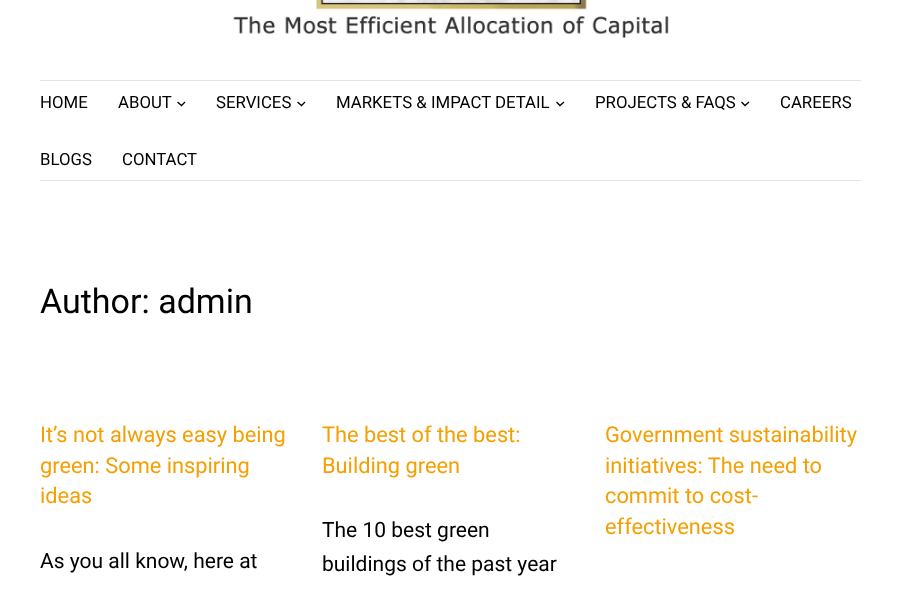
async function draw(canvas) {
	canvas.width = 901;
	canvas.height = 590;
	const c = canvas.getContext('2d');
	c.miterLimit = 4;
	c.fontKerning = 'normal';
	async function loadImage(src) {
		const img = new Image();
		img.src = src;
		await img.decode();
		return img;
	}

	c.fillStyle = '#fff';
	c.fillRect(0, 0, 901, 590);
	c.drawImage(await loadImage('img1.png'), 233, 0, 436, 38);
	c.fillStyle = '#e3e3e3';
	c.fillRect(40, 80, 821, 1);
	c.fillRect(40, 180, 821, 1);
	c.font = '16.8px Roboto';
	c.fillStyle = '#000';
	c.fillText('HOME', 40, 108);
	c.fillText('ABOUT', 118, 108);
	c.beginPath();
	c.moveTo(177.5, 102);
	c.lineTo(181.5, 105.5);
	c.lineTo(185, 102);
	c.strokeStyle = '#000';
	c.lineWidth = 1.3;
	c.stroke();
	c.fillText('SERVICES', 216, 108);
	c.beginPath();
	c.moveTo(297.5, 102);
	c.lineTo(301.5, 105.5);
	c.lineTo(305, 102);
	c.stroke();
	c.fillText('MARKETS & IMPACT DETAIL', 336, 108);
	c.beginPath();
	c.moveTo(556.5, 102);
	c.lineTo(560, 105.5);
	c.lineTo(564, 102);
	c.stroke();
	c.fillText('PROJECTS & FAQS', 595, 108);
	c.beginPath();
	c.moveTo(741.5, 102);
	c.lineTo(745, 105.5);
	c.lineTo(749, 102);
	c.stroke();
	for (const [text, x, y] of [
		['CAREERS', 780, 108],
		['BLOGS', 40, 165],
		['CONTACT', 122, 165],
	]) {
		c.fillText(text, x, y);
	}
	c.font = '34px Roboto';
	c.fillText('Author: admin', 40, 313);
	c.font = '21.8px Roboto';
	c.fillStyle = '#f49f03';
	for (const [text, x, y] of [
		['It’s not always easy being', 40, 442],
		['green: Some inspiring', 40, 473],
		['ideas', 40, 503],
	]) {
		c.fillText(text, x, y);
	}
	c.font = '21px Roboto';
	c.fillStyle = '#000';
	c.fillText('As you all know, here at', 40, 568);
	c.font = '21.8px Roboto';
	c.fillStyle = '#f49f03';
	c.fillText('The best of the best:', 322, 442);
	c.fillText('Building green', 322, 473);
	c.font = '21px Roboto';
	c.fillStyle = '#000';
	c.fillText('The 10 best green', 322, 537);
	c.fillText('buildings of the past year', 322, 571);
	c.font = '21.8px Roboto';
	c.fillStyle = '#f49f03';
	for (const [text, x, y] of [
		['Government sustainability', 605, 442],
		['initiatives: The need to', 605, 473],
		['commit to cost-', 605, 503],
		['effectiveness', 605, 534],
	]) {
		c.fillText(text, x, y);
	}
}

draw(document.querySelector('canvas'));
